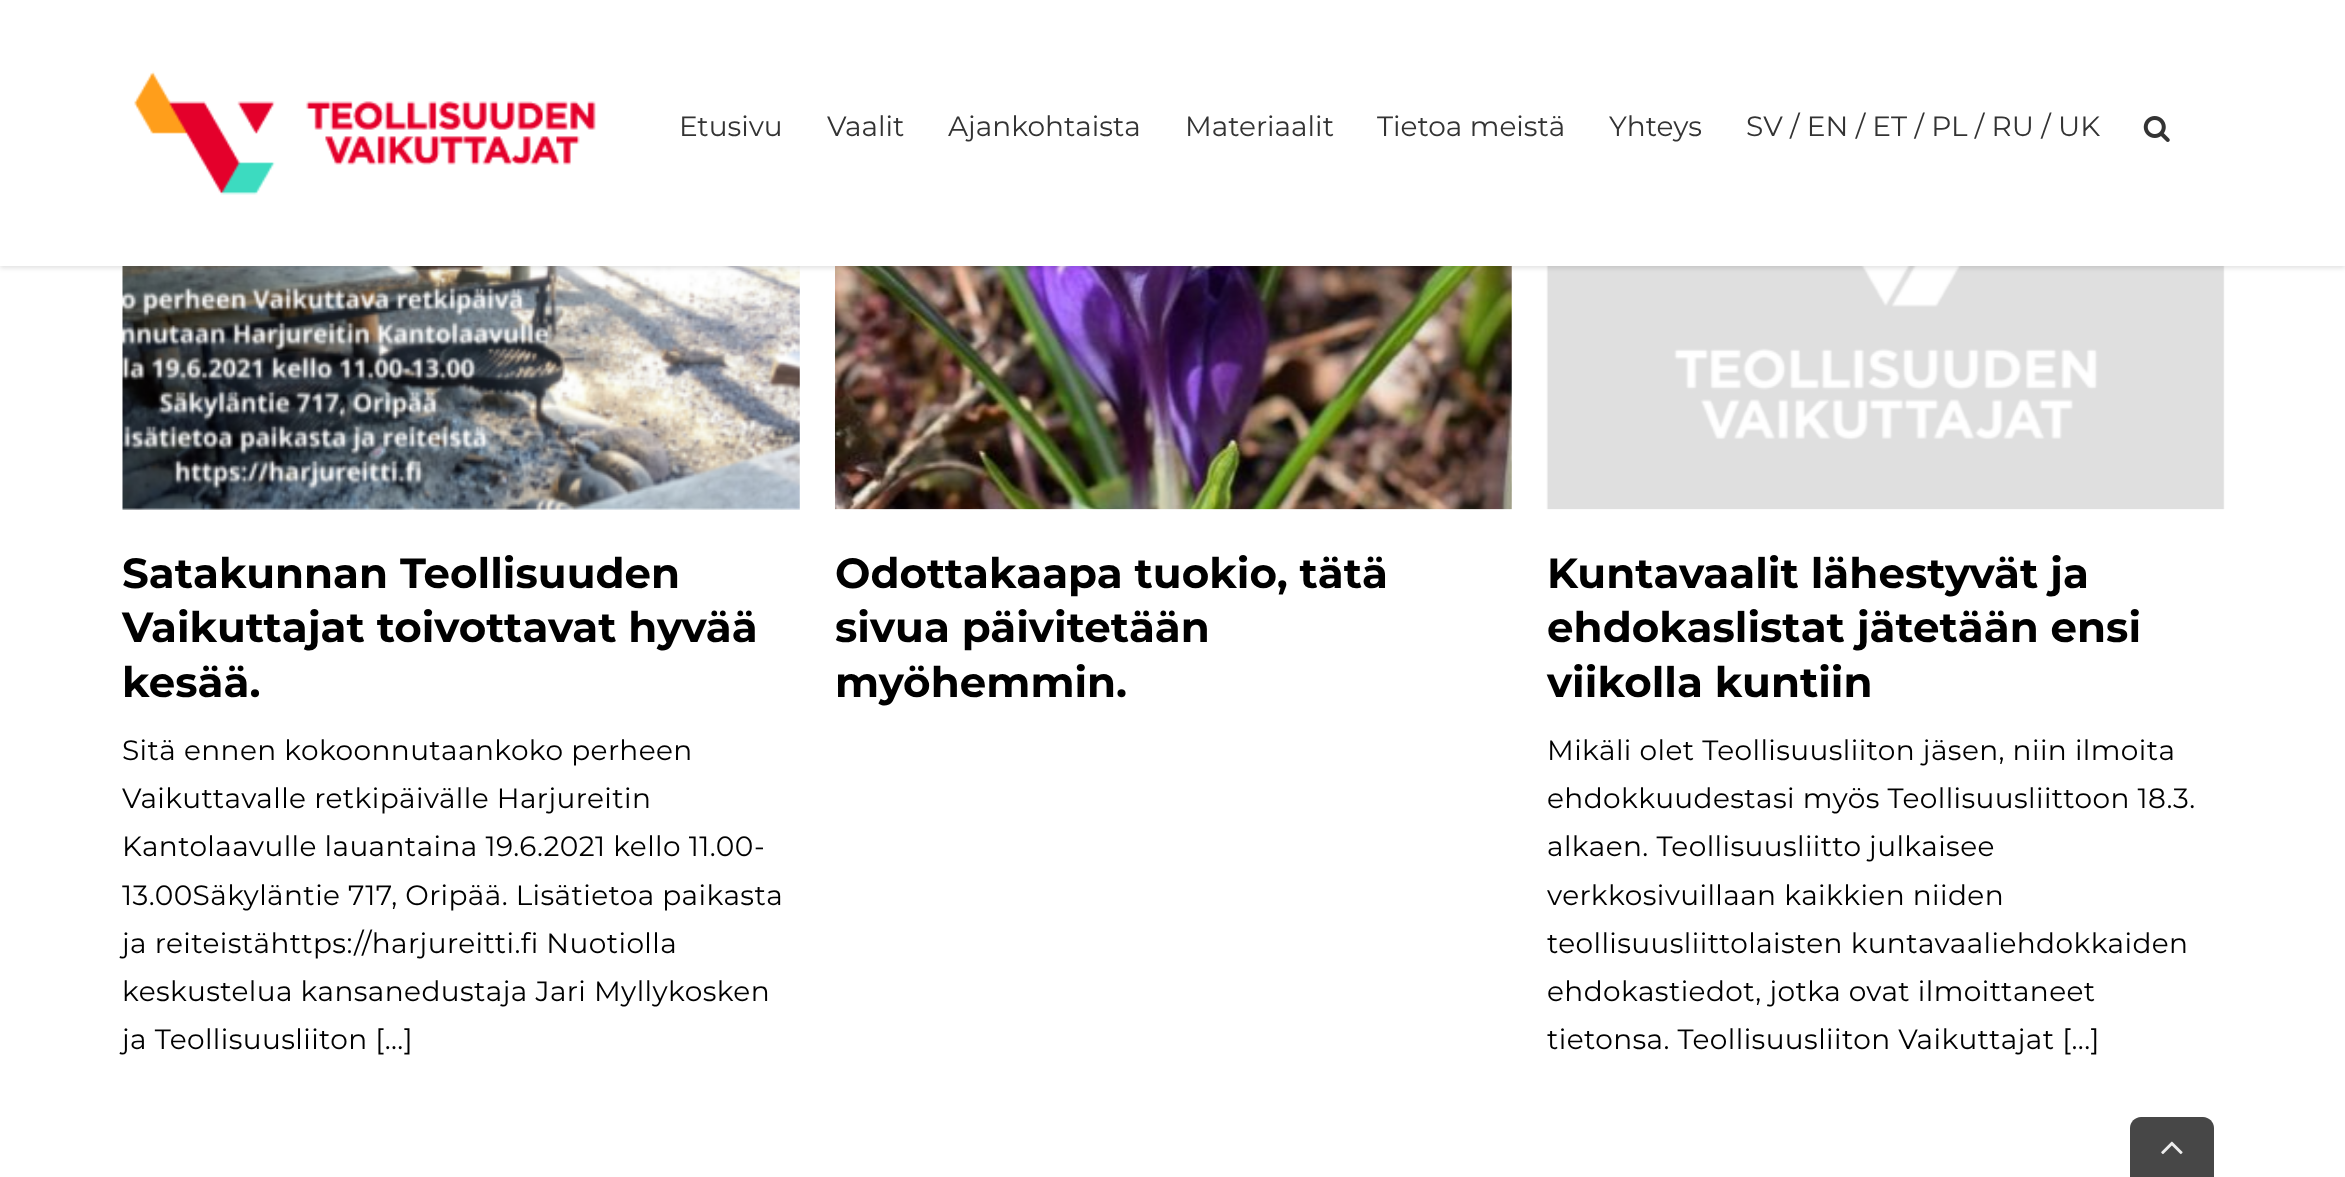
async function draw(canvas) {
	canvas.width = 2345;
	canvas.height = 1177;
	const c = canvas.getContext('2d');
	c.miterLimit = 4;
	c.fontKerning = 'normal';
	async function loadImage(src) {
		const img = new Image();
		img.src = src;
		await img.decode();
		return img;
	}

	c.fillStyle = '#fff';
	c.fillRect(0, 0, 2345, 1177);
	c.drawImage(await loadImage('img3.png'), 122, 266, 678, 244);
	c.drawImage(await loadImage('img4.png'), 835, 266, 677, 244);
	c.drawImage(await loadImage('img5.png'), 1546, 266, 679, 244);
	c.fillStyle = '#0000001f';
	c.filter = 'blur(2.5px)';
	c.beginPath();
	c.rect(0, 2, 2345, 266);
	c.fill();
	c.filter = 'none';
	c.fillStyle = '#fff';
	c.fillRect(0, 0, 2345, 266);
	c.drawImage(await loadImage('img1.png'), 134, 71, 462, 124);
	c.font = '28px Montserrat';
	c.fillStyle = '#333';
	for (const [text, x, y] of [
		['Etusivu', 679, 136],
		['Vaalit', 827, 136],
		['Ajankohtaista', 948, 136],
		['Materiaalit', 1185, 136],
		['Tietoa meistä', 1377, 136],
		['Yhteys', 1609, 136],
		['SV / EN / ET / PL / RU / UK', 1746, 136],
	]) {
		c.fillText(text, x, y);
	}
	c.drawImage(await loadImage('img2.png'), 2143, 116, 27, 26);
	c.font = 'bold 42px Montserrat';
	c.fillStyle = '#000';
	for (const [text, x, y] of [
		['Satakunnan Teollisuuden', 122, 588],
		['Vaikuttajat toivottavat hyvää', 122, 642],
		['kesää.', 122, 697],
	]) {
		c.fillText(text, x, y);
	}
	c.letterSpacing = '0.4px';
	c.font = '28px Montserrat';
	for (const [text, x, y] of [
		['Sitä ennen kokoonnutaankoko perheen', 122, 760],
		['Vaikuttavalle retkipäivälle Harjureitin', 122, 808],
		['Kantolaavulle lauantaina 19.6.2021 kello 11.00-', 122, 856],
		['13.00Säkyläntie 717, Oripää. Lisätietoa paikasta', 122, 905],
		['ja reiteistähttps://harjureitti.fi Nuotiolla', 122, 953],
		['keskustelua kansanedustaja Jari Myllykosken', 122, 1001],
		['ja Teollisuusliiton [...]', 122, 1049],
	]) {
		c.fillText(text, x, y);
	}
	c.letterSpacing = '0px';
	c.font = 'bold 42px Montserrat';
	for (const [text, x, y] of [
		['Odottakaapa tuokio, tätä', 835, 588],
		['sivua päivitetään', 835, 642],
		['myöhemmin.', 835, 697],
		['Kuntavaalit lähestyvät ja', 1547, 588],
		['ehdokaslistat jätetään ensi', 1547, 642],
		['viikolla kuntiin', 1547, 697],
	]) {
		c.fillText(text, x, y);
	}
	c.letterSpacing = '0.4px';
	c.font = '28px Montserrat';
	for (const [text, x, y] of [
		['Mikäli olet Teollisuusliiton jäsen, niin ilmoita', 1547, 760],
		['ehdokkuudestasi myös Teollisuusliittoon 18.3.', 1547, 808],
		['alkaen. Teollisuusliitto julkaisee', 1547, 856],
		['verkkosivuillaan kaikkien niiden', 1547, 905],
		['teollisuusliittolaisten kuntavaaliehdokkaiden', 1547, 953],
		['ehdokastiedot, jotka ovat ilmoittaneet', 1547, 1001],
		['tietonsa. Teollisuusliiton Vaikuttajat [...]', 1547, 1049],
	]) {
		c.fillText(text, x, y);
	}
	c.fillStyle = '#474747';
	c.beginPath();
	c.moveTo(2141, 1117);
	c.lineTo(2203, 1117);
	c.bezierCurveTo(2209, 1117, 2214, 1122, 2214, 1128);
	c.lineTo(2214, 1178);
	c.lineTo(2130, 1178);
	c.lineTo(2130, 1128);
	c.bezierCurveTo(2130, 1122, 2135, 1117, 2141, 1117);
	c.closePath();
	c.fill();
	c.drawImage(await loadImage('img6.png'), 2161, 1141, 22, 14);
}

draw(document.querySelector('canvas'));
